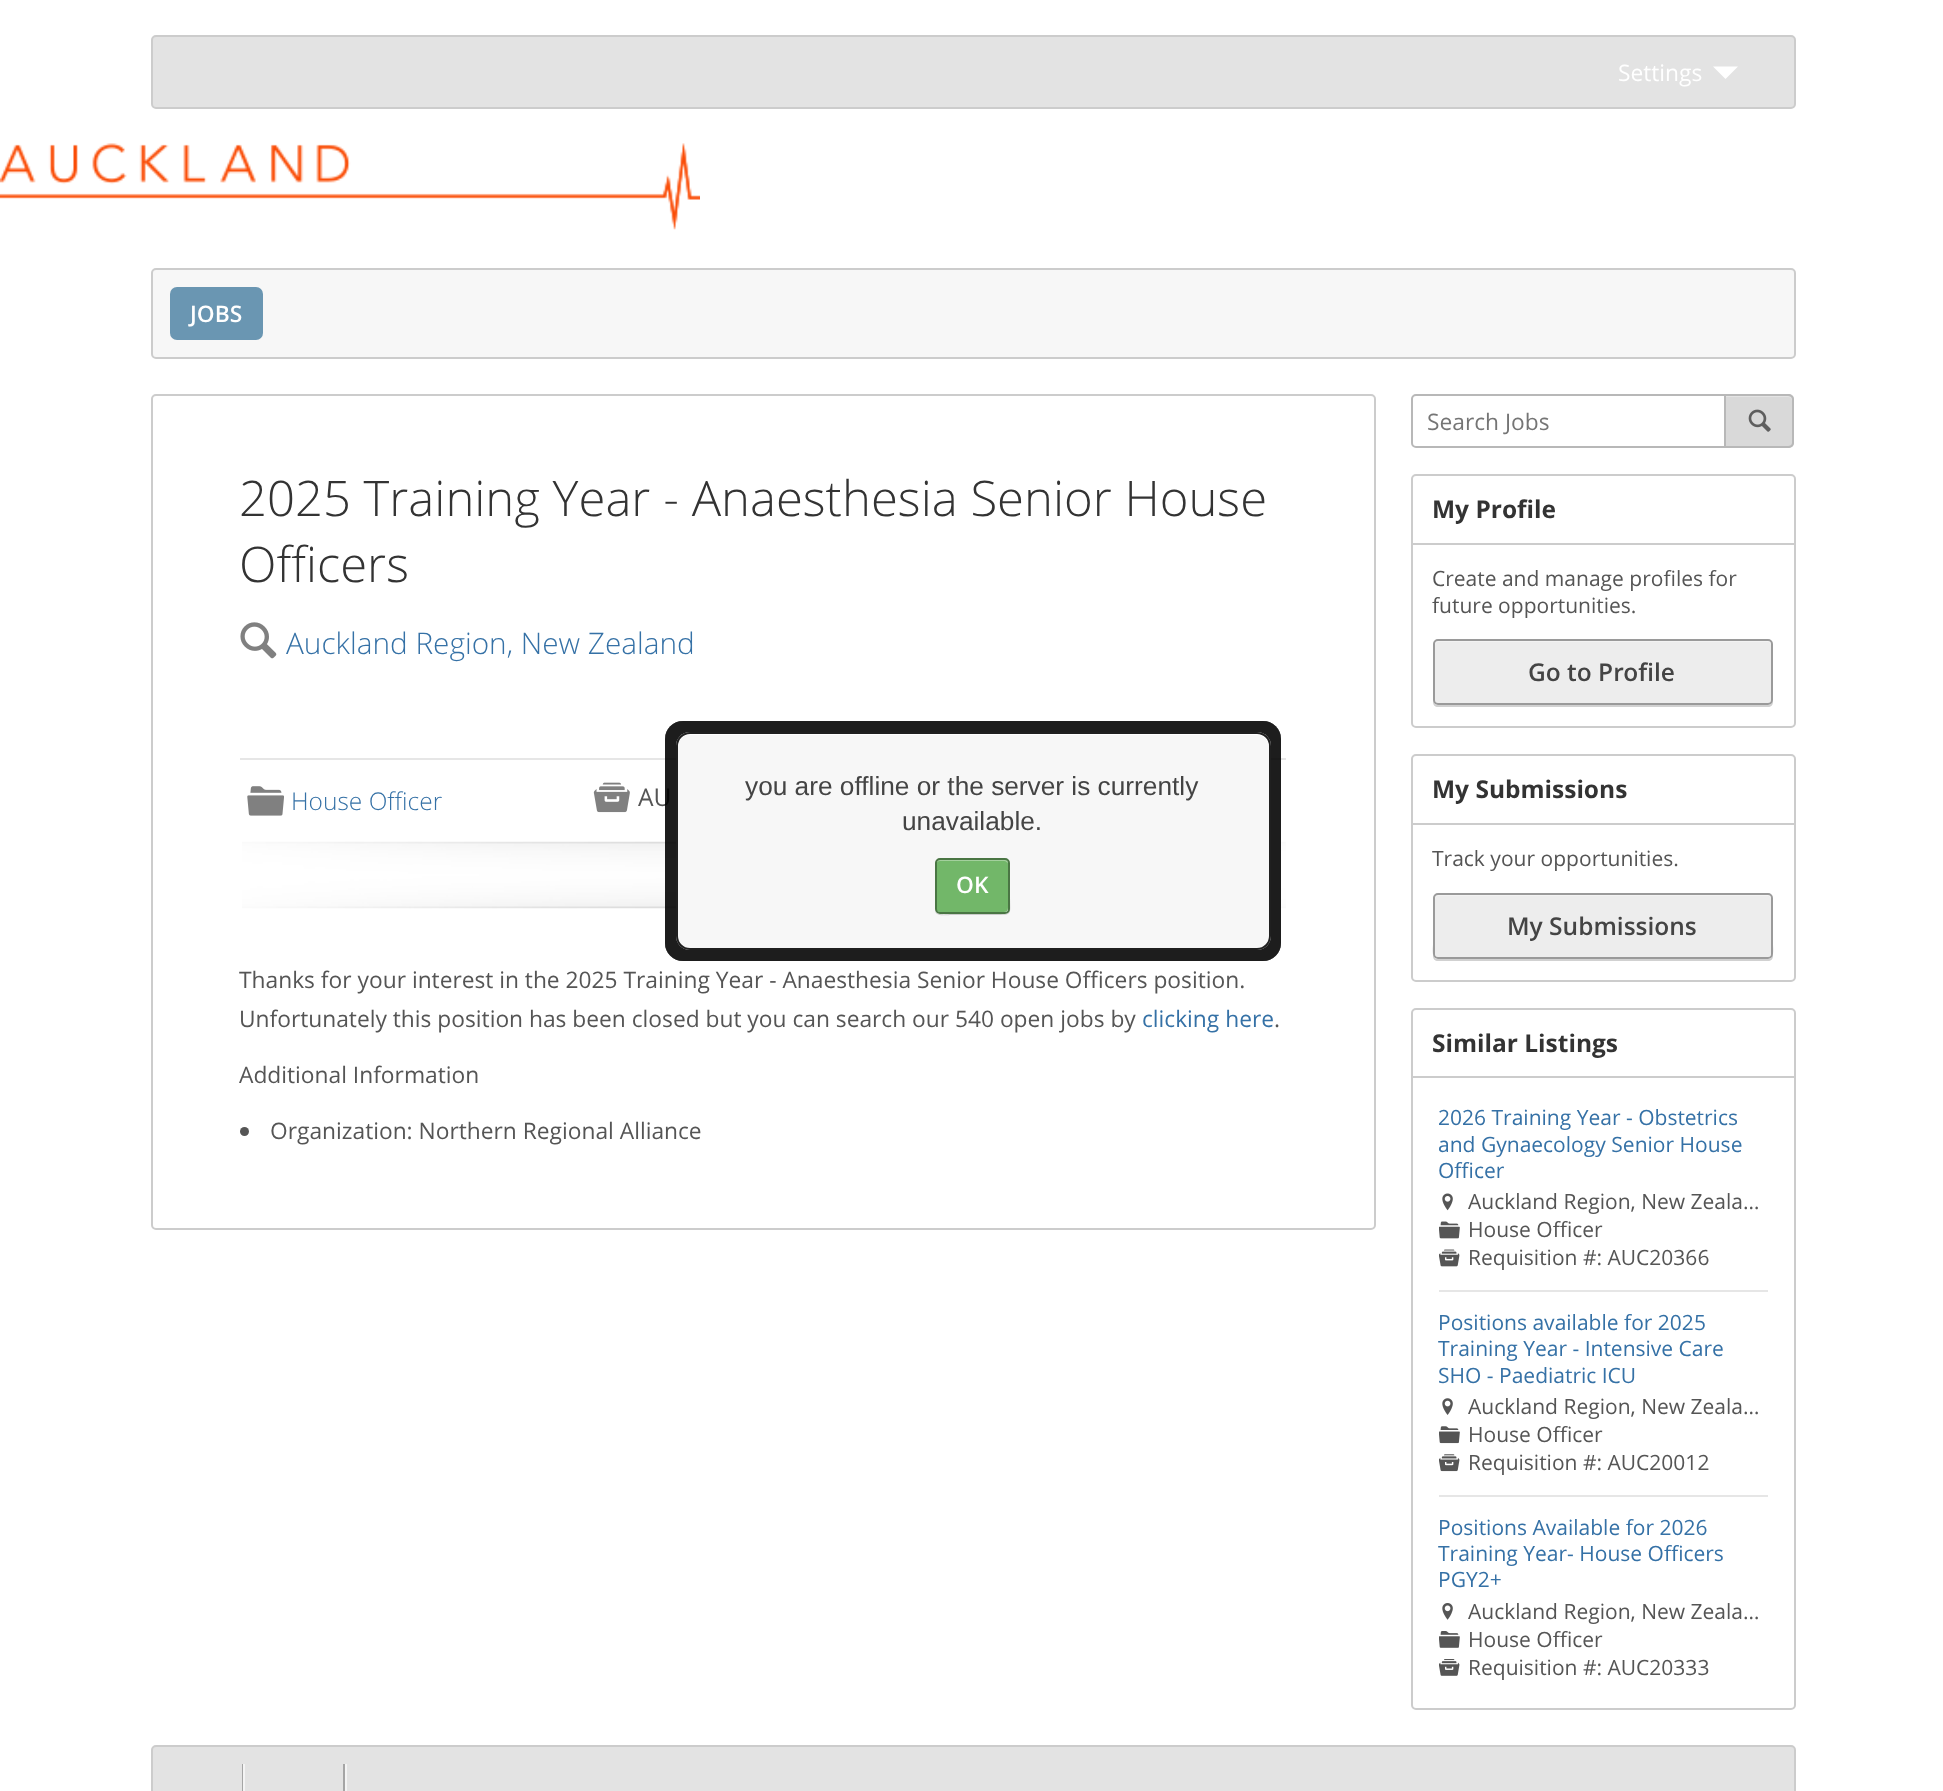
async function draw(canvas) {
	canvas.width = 1943;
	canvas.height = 1791;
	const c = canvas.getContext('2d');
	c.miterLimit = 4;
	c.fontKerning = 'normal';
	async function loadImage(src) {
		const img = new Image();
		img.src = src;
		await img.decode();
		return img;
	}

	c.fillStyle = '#fff';
	c.fillRect(0, 0, 1943, 1791);
	c.fillStyle = '#e3e3e3';
	c.beginPath();
	c.roundRect(152, 36, 1643, 72, 4);
	c.fill();
	c.strokeStyle = '#ccc';
	c.lineWidth = 2;
	c.stroke();
	c.font = '22.75px Open Sans';
	c.fillStyle = '#fff';
	c.fillText('Settings', 1618, 81);
	c.beginPath();
	c.moveTo(1713, 66.5);
	c.lineTo(1738, 66.5);
	c.lineTo(1725.5, 79);
	c.closePath();
	c.fill();
	c.drawImage(await loadImage('img1.png'), 0, 143, 700, 87);
	c.fillStyle = '#f7f7f7';
	c.beginPath();
	c.roundRect(152, 269, 1643, 89, 4);
	c.fill();
	c.stroke();
	c.fillStyle = '#6a96b2';
	c.beginPath();
	c.roundRect(170, 287, 93, 53, 7);
	c.fill();
	c.font = '600 22.75px Open Sans';
	c.fillStyle = '#fff';
	c.fillText('JOBS', 190, 322);
	c.beginPath();
	c.roundRect(152, 395, 1223, 834, 4);
	c.stroke();
	c.font = '300 49px Open Sans';
	c.fillStyle = '#333';
	c.fillText('2025 Training Year - Anaesthesia Senior House', 239, 516);
	c.fillText('Officers', 239, 582);
	c.drawImage(await loadImage('img2.png'), 240, 622, 37, 37);
	c.font = '300 29.75px Open Sans';
	c.fillStyle = '#3571a6';
	c.fillText('Auckland Region, New Zealand', 286, 654);
	c.fillStyle = '#e6e6e6';
	c.fillRect(240, 758, 1046, 2);
	c.drawImage(await loadImage('img3.png'), 247, 786, 37, 30);
	c.font = '300 24.5px Open Sans';
	c.fillStyle = '#3571a6';
	c.fillText('House Officer', 291, 810);
	c.drawImage(await loadImage('img4.png'), 593, 782, 37, 31);
	c.font = '24.5px Open Sans';
	c.fillStyle = '#555';
	c.fillText('AU', 638, 806);
	c.drawImage(await loadImage('img5.png'), 242, 841, 1044, 68);
	c.font = '22.75px Open Sans';
	c.fillText('Thanks for your interest in the 2025 Training Year - Anaesthesia Senior House Officers position.', 239, 988);
	c.fillText('Unfortunately this position has been closed but you can search our 540 open jobs by', 239, 1027);
	c.fillStyle = '#3571a6';
	c.fillText('clicking here', 1142, 1027);
	c.fillStyle = '#555';
	c.fillText('.', 1274, 1027);
	c.fillText('Additional Information', 239, 1083);
	c.beginPath();
	c.arc(244.5, 1131.5, 4.5, 0, 2 * Math.PI);
	c.fill();
	c.fillText('Organization: Northern Regional Alliance', 270, 1139);
	c.beginPath();
	c.roundRect(1412, 395, 313, 52, [4, 0, 0, 4]);
	c.strokeStyle = '#b8b8b8';
	c.stroke();
	c.fillStyle = '#757575';
	c.fillText('Search Jobs', 1427, 430);
	c.fillStyle = '#d9d9d9';
	c.beginPath();
	c.roundRect(1726, 394, 68, 54, [0, 5, 5, 0]);
	c.fill();
	c.fillStyle = '#e4e4e4';
	c.beginPath();
	c.moveTo(1726, 397);
	c.lineTo(1788, 397);
	c.bezierCurveTo(1790, 397, 1792, 399, 1792, 401);
	c.lineTo(1792, 400);
	c.bezierCurveTo(1792, 398, 1790, 396, 1788, 396);
	c.lineTo(1726, 396);
	c.closePath();
	c.fill();
	c.fillStyle = '#b8b8b8';
	c.beginPath();
	c.moveTo(1726, 394);
	c.lineTo(1788, 394);
	c.bezierCurveTo(1791, 394, 1794, 396, 1794, 399);
	c.lineTo(1794, 443);
	c.bezierCurveTo(1794, 446, 1791, 448, 1788, 448);
	c.lineTo(1726, 448);
	c.closePath();
	c.moveTo(1726, 396);
	c.lineTo(1788, 396);
	c.bezierCurveTo(1790, 396, 1792, 397, 1792, 399);
	c.lineTo(1792, 443);
	c.bezierCurveTo(1792, 445, 1790, 446, 1788, 446);
	c.lineTo(1726, 446);
	c.closePath();
	c.fill('evenodd');
	c.drawImage(await loadImage('img6.png'), 1748, 409, 23, 23);
	c.beginPath();
	c.roundRect(1412, 475, 383, 252, 4);
	c.strokeStyle = '#ccc';
	c.stroke();
	c.fillStyle = '#ccc';
	c.fillRect(1412, 543, 382, 2);
	c.font = 'bold 24.5px Open Sans';
	c.fillStyle = '#333';
	c.fillText('My Profile', 1432, 518);
	c.font = '21px Open Sans';
	c.fillStyle = '#555';
	c.fillText('Create and manage profiles for', 1432, 586);
	c.fillText('future opportunities.', 1432, 613);
	c.fillStyle = '#d1d1d1';
	c.beginPath();
	c.moveTo(1433, 644);
	c.lineTo(1433, 702);
	c.bezierCurveTo(1433, 705, 1435, 707, 1438, 707);
	c.lineTo(1768, 707);
	c.bezierCurveTo(1771, 707, 1773, 705, 1773, 702);
	c.lineTo(1773, 644);
	c.lineTo(1773, 700);
	c.bezierCurveTo(1773, 703, 1770, 705, 1768, 705);
	c.lineTo(1438, 705);
	c.bezierCurveTo(1436, 705, 1433, 703, 1433, 700);
	c.closePath();
	c.fill();
	c.fillStyle = '#ededed';
	c.beginPath();
	c.roundRect(1435, 641, 336, 63, 4);
	c.fill();
	c.fillStyle = '#ffffff59';
	c.beginPath();
	c.moveTo(1438, 642);
	c.lineTo(1768, 642);
	c.bezierCurveTo(1769, 642, 1771, 644, 1771, 646);
	c.bezierCurveTo(1771, 643, 1770, 641, 1767, 641);
	c.lineTo(1439, 641);
	c.bezierCurveTo(1436, 641, 1435, 643, 1435, 646);
	c.bezierCurveTo(1435, 644, 1437, 642, 1438, 642);
	c.closePath();
	c.fill();
	c.beginPath();
	c.roundRect(1434, 640, 338, 64, 4);
	c.strokeStyle = '#9a9a9a';
	c.stroke();
	c.font = '600 24.5px Open Sans';
	c.fillStyle = '#444';
	c.fillText('Go to Profile', 1528, 681);
	c.beginPath();
	c.roundRect(1412, 755, 383, 226, 4);
	c.strokeStyle = '#ccc';
	c.stroke();
	c.fillStyle = '#ccc';
	c.fillRect(1412, 823, 382, 2);
	c.font = 'bold 24.5px Open Sans';
	c.fillStyle = '#333';
	c.fillText('My Submissions', 1432, 798);
	c.font = '21px Open Sans';
	c.fillStyle = '#555';
	c.fillText('Track your opportunities.', 1432, 866);
	c.fillStyle = '#d1d1d1';
	c.beginPath();
	c.moveTo(1433, 897);
	c.lineTo(1433, 956);
	c.bezierCurveTo(1433, 959, 1435, 961, 1438, 961);
	c.lineTo(1768, 961);
	c.bezierCurveTo(1771, 961, 1773, 959, 1773, 956);
	c.lineTo(1773, 897);
	c.lineTo(1773, 944);
	c.bezierCurveTo(1773, 948, 1775, 959, 1768, 959);
	c.lineTo(1438, 959);
	c.bezierCurveTo(1431, 959, 1433, 948, 1433, 944);
	c.closePath();
	c.fill();
	c.fillStyle = '#ededed';
	c.beginPath();
	c.roundRect(1435, 894, 336, 63, 4);
	c.fill();
	c.fillStyle = '#ffffff59';
	c.beginPath();
	c.moveTo(1438, 896);
	c.lineTo(1768, 896);
	c.bezierCurveTo(1769, 896, 1771, 898, 1771, 900);
	c.bezierCurveTo(1771, 897, 1771, 894, 1767, 894);
	c.lineTo(1439, 894);
	c.bezierCurveTo(1435, 894, 1435, 897, 1435, 900);
	c.bezierCurveTo(1435, 898, 1437, 896, 1438, 896);
	c.closePath();
	c.fill();
	c.beginPath();
	c.roundRect(1434, 894, 338, 64, 4);
	c.strokeStyle = '#9a9a9a';
	c.stroke();
	c.font = '600 24.5px Open Sans';
	c.fillStyle = '#444';
	c.fillText('My Submissions', 1507, 935);
	c.beginPath();
	c.roundRect(1412, 1009, 383, 700, 4);
	c.strokeStyle = '#ccc';
	c.stroke();
	c.fillStyle = '#ccc';
	c.fillRect(1412, 1076, 382, 2);
	c.font = 'bold 24.5px Open Sans';
	c.fillStyle = '#333';
	c.fillText('Similar Listings', 1432, 1052);
	c.fillStyle = '#e6e6e6';
	c.fillRect(1439, 1290, 329, 2);
	c.font = '21px Open Sans';
	c.fillStyle = '#3571a6';
	for (const [text, x, y] of [
		['2026 Training Year - Obstetrics', 1438, 1125],
		['and Gynaecology Senior House', 1438, 1152],
		['Officer', 1438, 1178],
	]) {
		c.fillText(text, x, y);
	}
	c.drawImage(await loadImage('img7.png'), 1442, 1193, 11, 18);
	c.fillStyle = '#555';
	c.fillText('Auckland Region, New Zeala…', 1468, 1209);
	c.drawImage(await loadImage('img8.png'), 1439, 1221, 21, 18);
	c.fillText('House Officer', 1468, 1237);
	c.drawImage(await loadImage('img9.png'), 1439, 1249, 21, 18);
	c.fillText('Requisition #: AUC20366', 1468, 1265);
	c.fillStyle = '#e6e6e6';
	c.fillRect(1439, 1495, 329, 2);
	c.fillStyle = '#3571a6';
	for (const [text, x, y] of [
		['Positions available for 2025', 1438, 1330],
		['Training Year - Intensive Care', 1438, 1356],
		['SHO - Paediatric ICU', 1438, 1383],
	]) {
		c.fillText(text, x, y);
	}
	c.drawImage(await loadImage('img10.png'), 1442, 1398, 11, 17);
	c.fillStyle = '#555';
	c.fillText('Auckland Region, New Zeala…', 1468, 1414);
	c.drawImage(await loadImage('img11.png'), 1439, 1426, 21, 18);
	c.fillText('House Officer', 1468, 1442);
	c.drawImage(await loadImage('img12.png'), 1439, 1454, 21, 18);
	c.fillText('Requisition #: AUC20012', 1468, 1470);
	c.fillStyle = '#3571a6';
	for (const [text, x, y] of [
		['Positions Available for 2026', 1438, 1535],
		['Training Year- House Officers', 1438, 1561],
		['PGY2+', 1438, 1587],
	]) {
		c.fillText(text, x, y);
	}
	c.drawImage(await loadImage('img13.png'), 1442, 1603, 11, 17);
	c.fillStyle = '#555';
	c.fillText('Auckland Region, New Zeala…', 1468, 1619);
	c.drawImage(await loadImage('img14.png'), 1439, 1631, 21, 17);
	c.fillText('House Officer', 1468, 1647);
	c.drawImage(await loadImage('img15.png'), 1439, 1659, 21, 17);
	c.fillText('Requisition #: AUC20333', 1468, 1675);
	c.fillStyle = '#e3e3e3';
	c.beginPath();
	c.roundRect(152, 1746, 1643, 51, 4);
	c.fill();
	c.stroke();
	for (const [x, y, w, h, color] of [
		[242, 1764, 1, 27, '#a5a5a5'],
		[243, 1764, 2, 27, '#f4f4f4'],
		[343, 1764, 2, 27, '#a5a5a5'],
		[345, 1764, 2, 27, '#f4f4f4'],
	]) {
		c.fillStyle = color;
		c.fillRect(x, y, w, h);
	}
	c.fillStyle = '#00000059';
	c.beginPath();
	c.roundRect(665, 721, 616, 240, 18);
	c.fill();
	c.beginPath();
	c.roundRect(677, 733, 593, 216, 13);
	c.strokeStyle = '#202020';
	c.stroke();
	c.beginPath();
	c.roundRect(665, 721, 616, 240, 18);
	c.fill();
	c.beginPath();
	c.roundRect(677, 733, 593, 216, 13);
	c.stroke();
	c.beginPath();
	c.roundRect(665, 721, 616, 240, 18);
	c.fill();
	c.beginPath();
	c.roundRect(677, 733, 593, 216, 13);
	c.stroke();
	c.beginPath();
	c.roundRect(665, 721, 616, 240, 18);
	c.fill();
	c.beginPath();
	c.roundRect(677, 733, 593, 216, 13);
	c.stroke();
	c.beginPath();
	c.roundRect(665, 721, 616, 240, 18);
	c.fill();
	c.fillStyle = '#f7f7f7';
	c.beginPath();
	c.roundRect(676, 732, 595, 218, 14);
	c.fill();
	c.fillStyle = '#fff';
	c.beginPath();
	c.moveTo(690, 735);
	c.lineTo(1256, 735);
	c.bezierCurveTo(1263, 735, 1269, 740, 1269, 747);
	c.bezierCurveTo(1269, 740, 1265, 733, 1257, 733);
	c.lineTo(689, 733);
	c.bezierCurveTo(681, 733, 677, 740, 677, 747);
	c.bezierCurveTo(677, 740, 683, 735, 690, 735);
	c.closePath();
	c.fill();
	c.beginPath();
	c.roundRect(677, 733, 593, 216, 13);
	c.stroke();
	c.font = '26.25px Liberation Sans';
	c.fillStyle = '#444';
	c.fillText('you are offline or the server is currently', 745, 795);
	c.fillText('unavailable.', 902, 830);
	c.fillStyle = '#cbcbcb';
	c.beginPath();
	c.moveTo(935, 911);
	c.bezierCurveTo(936, 917, 948, 915, 951, 915);
	c.lineTo(994, 915);
	c.bezierCurveTo(1014, 915, 1010, 915, 1010, 895);
	c.lineTo(1010, 862);
	c.lineTo(1010, 901);
	c.bezierCurveTo(1010, 916, 1009, 914, 994, 914);
	c.lineTo(951, 914);
	c.bezierCurveTo(947, 914, 938, 916, 935, 911);
	c.closePath();
	c.fill();
	c.fillStyle = '#72b769';
	c.beginPath();
	c.roundRect(936, 859, 72, 53, 4);
	c.fill();
	c.fillStyle = '#ffffff59';
	c.beginPath();
	c.moveTo(940, 861);
	c.lineTo(1004, 861);
	c.bezierCurveTo(1006, 861, 1008, 863, 1008, 864);
	c.bezierCurveTo(1008, 856, 998, 859, 993, 859);
	c.lineTo(951, 859);
	c.bezierCurveTo(946, 859, 936, 856, 936, 864);
	c.bezierCurveTo(936, 863, 938, 861, 940, 861);
	c.closePath();
	c.fill();
	c.beginPath();
	c.roundRect(936, 859, 73, 54, 4);
	c.strokeStyle = '#4a7644';
	c.stroke();
	c.font = '600 22.75px Open Sans';
	c.fillStyle = '#fff';
	c.fillText('OK', 956, 893);
}

draw(document.querySelector('canvas'));
